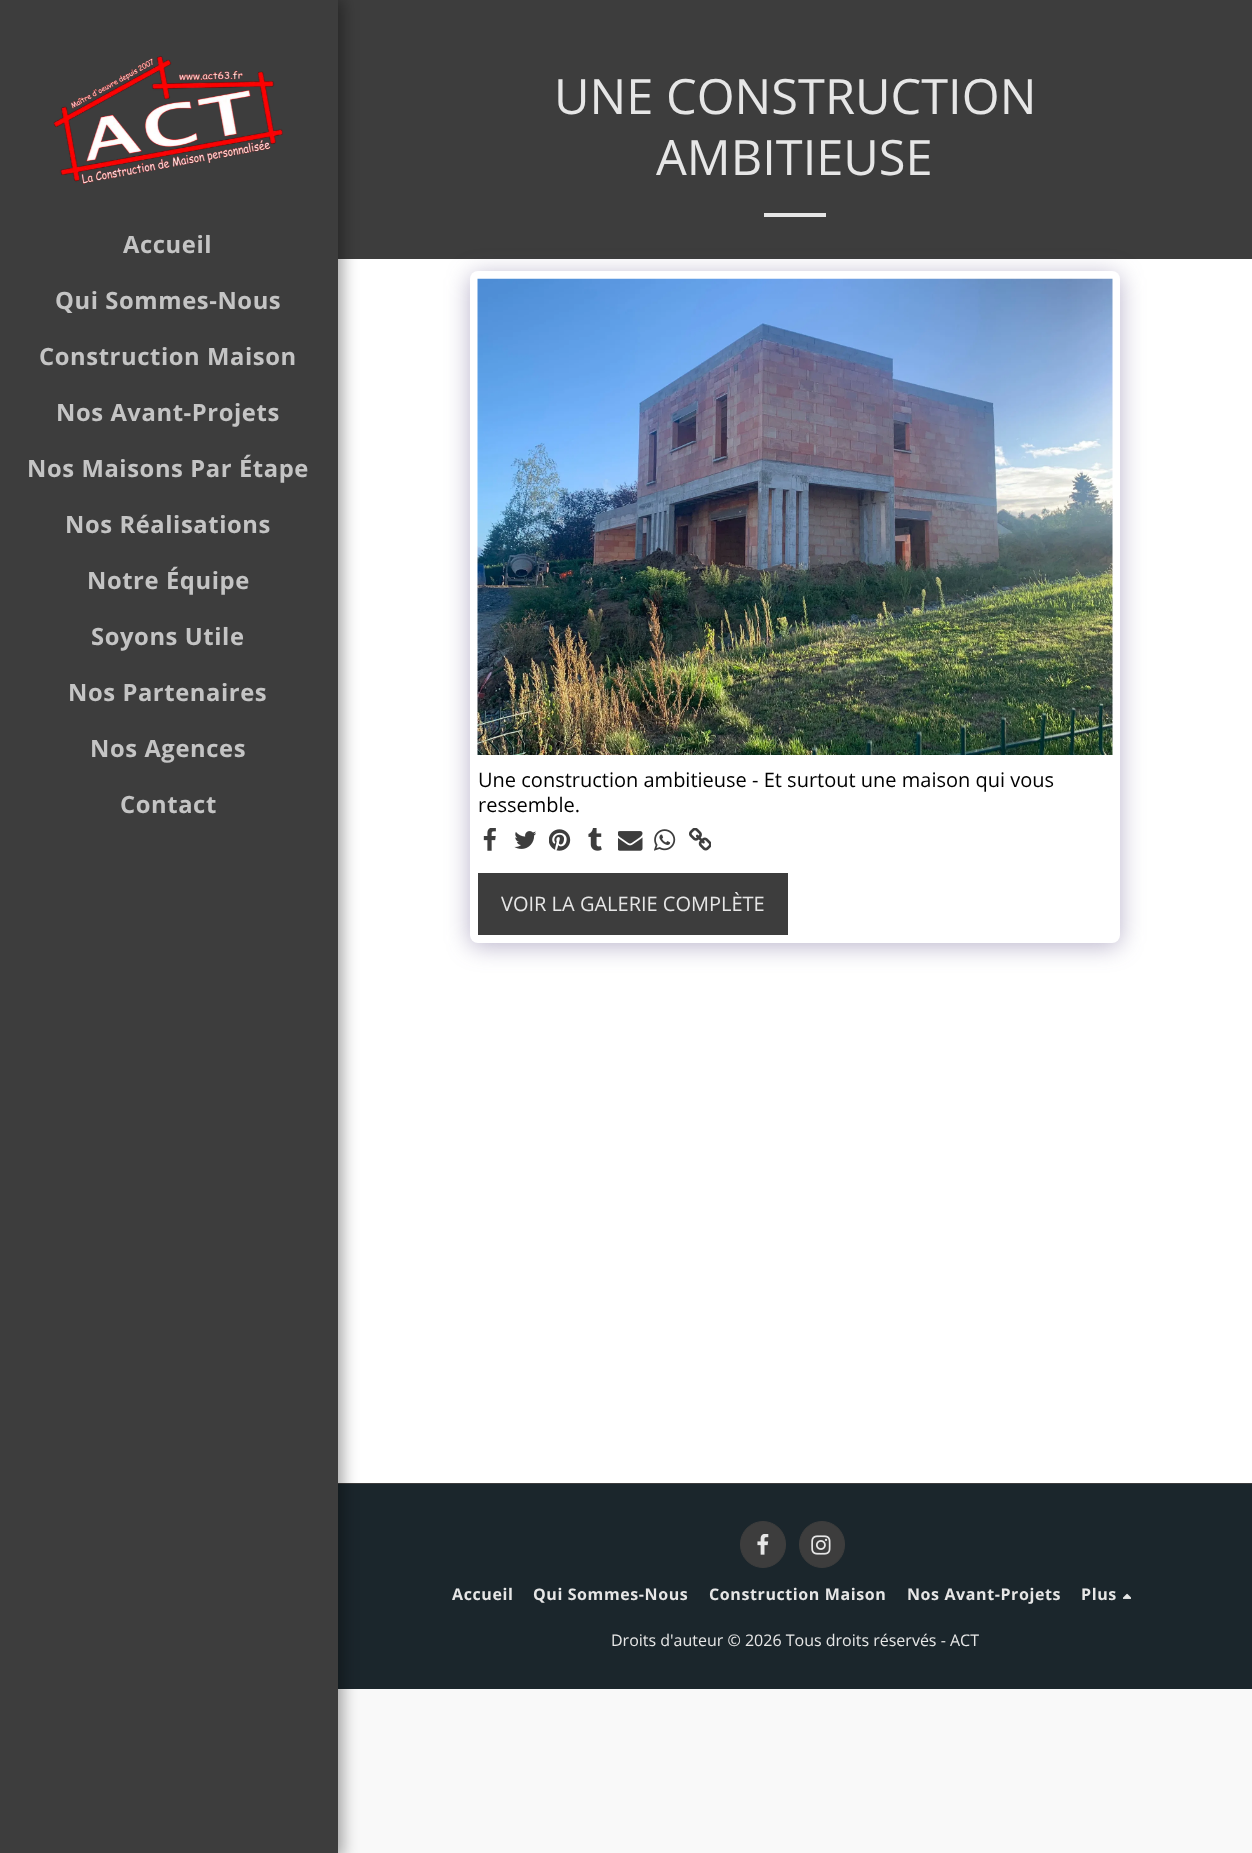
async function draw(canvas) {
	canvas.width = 1252;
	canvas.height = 1853;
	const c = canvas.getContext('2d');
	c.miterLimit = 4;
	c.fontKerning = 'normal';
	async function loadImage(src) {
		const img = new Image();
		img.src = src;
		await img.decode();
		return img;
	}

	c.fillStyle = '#f9f9f9';
	c.fillRect(0, 0, 1252, 1853);
	for (const [x, y, w, h, color] of [
		[338, 259, 914, 1224, '#fff'],
		[338, 0, 914, 259, '#3d3d3d'],
		[338, 1483, 914, 1, '#3d3d3d'],
		[338, 1484, 914, 205, '#1b262c'],
	]) {
		c.fillStyle = color;
		c.fillRect(x, y, w, h);
	}
	c.fillStyle = '#00000059';
	c.filter = 'blur(7.5px)';
	c.beginPath();
	c.rect(0, -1, 343, 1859);
	c.fill();
	c.filter = 'none';
	c.fillStyle = '#3d3d3d';
	c.fillRect(0, 0, 338, 1853);
	c.drawImage(await loadImage('img1.png'), 53, 56, 230, 128);
	c.letterSpacing = '0.6px';
	c.font = 'bold 23.75px Open Sans';
	c.fillStyle = '#c4c4c4';
	for (const [text, x, y] of [
		['Accueil', 123, 253],
		['Qui Sommes-Nous', 55, 309],
		['Construction Maison', 39, 365],
		['Nos Avant-Projets', 56, 421],
		['Nos Maisons Par Étape', 27, 477],
		['Nos Réalisations', 65, 533],
		['Notre Équipe', 87, 589],
		['Soyons Utile', 91, 645],
		['Nos Partenaires', 68, 701],
		['Nos Agences', 90, 757],
		['Contact', 120, 813],
	]) {
		c.fillText(text, x, y);
	}
	c.letterSpacing = '0px';
	c.font = '48.75px Open Sans';
	c.fillStyle = '#e6e6e6';
	c.fillText('UNE CONSTRUCTION', 554, 114);
	c.fillText('AMBITIEUSE', 656, 175);
	c.fillRect(764, 213, 62, 4);
	c.fillStyle = '#4d3f7a66';
	c.filter = 'blur(12.5px)';
	c.beginPath();
	c.roundRect(470, 275, 650, 671, 8);
	c.fill();
	c.filter = 'none';
	c.fillStyle = '#fff';
	c.beginPath();
	c.roundRect(470, 271, 650, 672, 8);
	c.fill();
	c.drawImage(await loadImage('img2.png'), 477, 278, 636, 477);
	c.font = '20px Open Sans';
	c.fillStyle = '#000';
	c.fillText('Une construction ambitieuse - Et surtout une maison qui vous', 478, 787);
	c.fillText('ressemble.', 478, 812);
	c.drawImage(await loadImage('img3.png'), 483, 828, 13, 23);
	c.drawImage(await loadImage('img4.png'), 514, 831, 22, 18);
	c.drawImage(await loadImage('img5.png'), 549, 829, 22, 22);
	c.drawImage(await loadImage('img6.png'), 588, 828, 14, 23);
	c.drawImage(await loadImage('img7.png'), 618, 831, 25, 20);
	c.drawImage(await loadImage('img8.png'), 654, 829, 22, 22);
	c.drawImage(await loadImage('img9.png'), 689, 828, 22, 23);
	c.fillStyle = '#3d3d3d';
	c.fillRect(478, 873, 310, 62);
	c.fillStyle = '#e6e6e6';
	c.fillText('VOIR LA GALERIE COMPLÈTE', 501, 911);
	c.fillStyle = '#3d3d3d';
	c.beginPath();
	c.roundRect(740.5, 1521.5, 45, 46, 22.5);
	c.fill();
	c.strokeStyle = '#3d3d3d';
	c.stroke();
	c.drawImage(await loadImage('img10.png'), 757, 1534, 12, 21);
	c.beginPath();
	c.roundRect(799.5, 1521.5, 45, 46, 22.5);
	c.fill();
	c.stroke();
	c.drawImage(await loadImage('img11.png'), 811, 1535, 20, 20);
	c.letterSpacing = '0.6px';
	c.font = 'bold 16px Open Sans';
	c.fillStyle = '#e6e6e6';
	for (const [text, x, y] of [
		['Accueil', 452, 1600],
		['Qui Sommes-Nous', 533, 1600],
		['Construction Maison', 709, 1600],
		['Nos Avant-Projets', 907, 1600],
		['Plus', 1081, 1600],
	]) {
		c.fillText(text, x, y);
	}
	c.drawImage(await loadImage('img12.png'), 1123, 1593, 8, 6);
	c.letterSpacing = '0px';
	c.font = '16px Open Sans';
	c.fillText('Droits d\'auteur © 2026 Tous droits réservés - ACT', 611, 1646);
}

draw(document.querySelector('canvas'));
